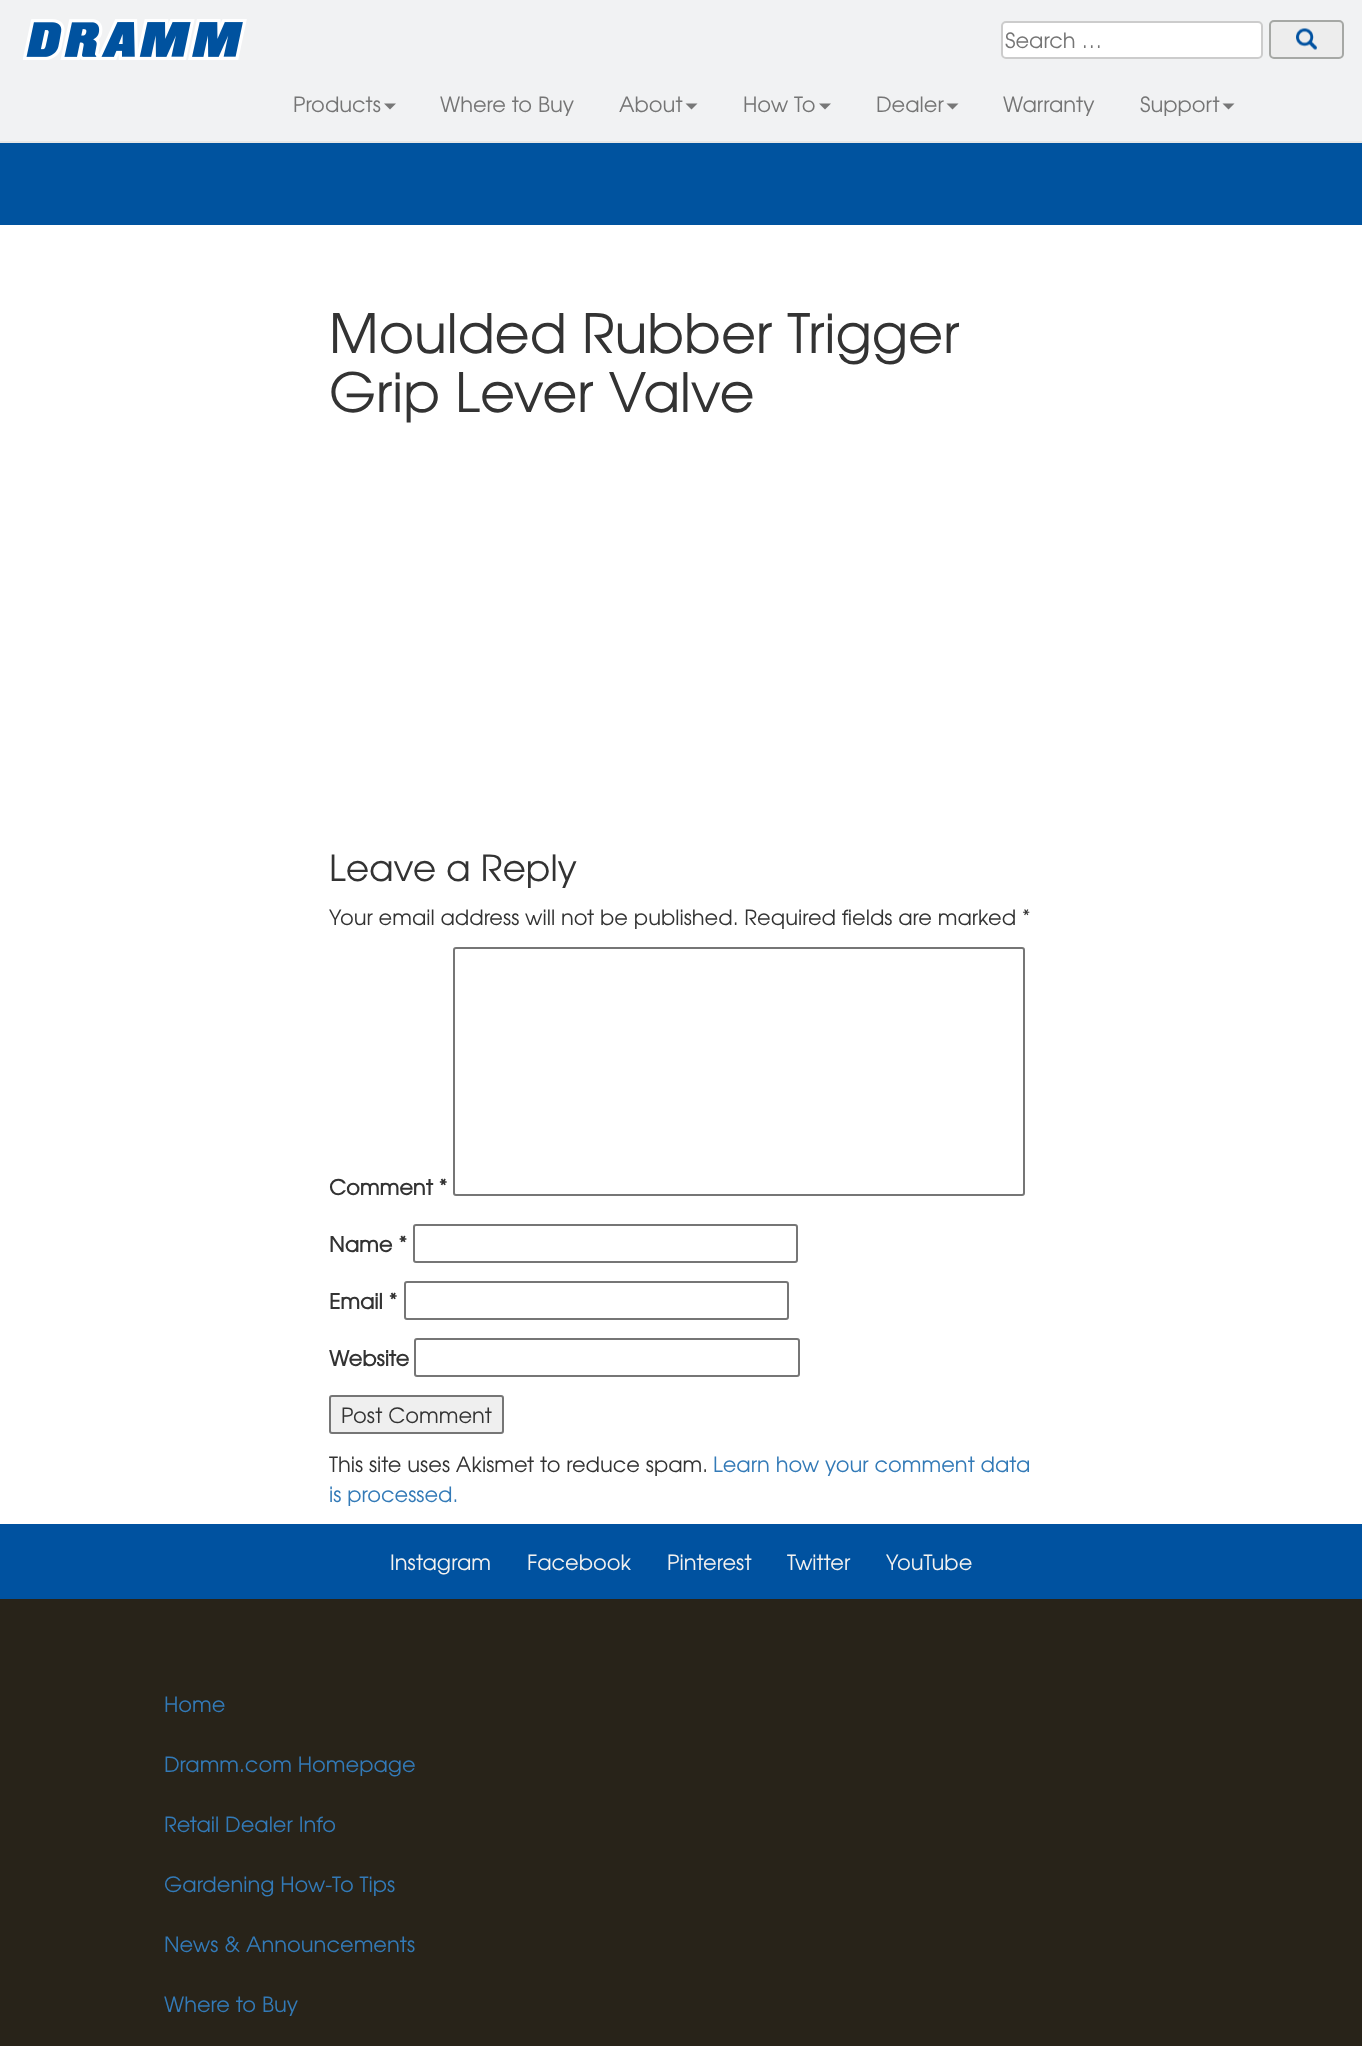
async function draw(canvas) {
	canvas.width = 1362;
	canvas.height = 2046;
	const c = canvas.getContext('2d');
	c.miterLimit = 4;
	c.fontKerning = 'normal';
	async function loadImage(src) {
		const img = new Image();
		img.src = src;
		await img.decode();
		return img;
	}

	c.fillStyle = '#fff';
	c.fillRect(0, 0, 1362, 2046);
	c.fillStyle = '#f1f2f3';
	c.fillRect(0, 0, 1362, 141);
	c.fillStyle = '#e7e7e7';
	c.fillRect(0, 141, 1362, 2);
	c.drawImage(await loadImage('img1.png'), 23, 19, 224, 41);
	c.fillStyle = '#fff';
	c.beginPath();
	c.roundRect(1002, 22, 260, 36, 4);
	c.fill();
	c.strokeStyle = '#ccc';
	c.lineWidth = 2;
	c.stroke();
	c.font = '21px TeX Gyre Adventor';
	c.fillStyle = '#757575';
	c.fillText('Search …', 1005, 48);
	c.fillStyle = '#ededed';
	c.beginPath();
	c.roundRect(1269, 20, 75, 39, 5);
	c.fill();
	c.drawImage(await loadImage('img2.png'), 1296, 28, 21, 22);
	c.beginPath();
	c.roundRect(1270, 21, 73, 37, 4);
	c.strokeStyle = '#a6a8a5';
	c.stroke();
	c.fillStyle = '#757575';
	c.fillText('Products', 293, 112);
	c.fillStyle = '#777';
	c.beginPath();
	c.moveTo(384, 103.5);
	c.lineTo(396, 103.5);
	c.lineTo(390, 109.5);
	c.closePath();
	c.fill();
	c.fillStyle = '#757575';
	c.fillText('Where to Buy', 440, 112);
	c.fillText('About', 619, 112);
	c.fillStyle = '#777';
	c.beginPath();
	c.moveTo(685.5, 103.5);
	c.lineTo(697.5, 103.5);
	c.lineTo(691.5, 109.5);
	c.closePath();
	c.fill();
	c.fillStyle = '#757575';
	c.fillText('How To', 743, 112);
	c.fillStyle = '#777';
	c.beginPath();
	c.moveTo(819, 103.5);
	c.lineTo(831, 103.5);
	c.lineTo(825, 109.5);
	c.closePath();
	c.fill();
	c.fillStyle = '#757575';
	c.fillText('Dealer', 876, 112);
	c.fillStyle = '#777';
	c.beginPath();
	c.moveTo(946.5, 103.5);
	c.lineTo(958.5, 103.5);
	c.lineTo(952.5, 109.5);
	c.closePath();
	c.fill();
	c.fillStyle = '#757575';
	c.fillText('Warranty', 1003, 112);
	c.fillText('Support', 1140, 112);
	c.fillStyle = '#777';
	c.beginPath();
	c.moveTo(1222.5, 103.5);
	c.lineTo(1234.5, 103.5);
	c.lineTo(1228.5, 109.5);
	c.closePath();
	c.fill();
	c.fillStyle = '#00539f';
	c.fillRect(0, 143, 1362, 82);
	c.font = '54px TeX Gyre Adventor';
	c.fillStyle = '#333';
	c.fillText('Moulded Rubber Trigger', 329, 353);
	c.fillText('Grip Lever Valve', 329, 412);
	c.font = '36px TeX Gyre Adventor';
	c.fillText('Leave a Reply', 329, 881);
	c.font = '21px TeX Gyre Adventor';
	c.fillText('Your email address will not be published. Required fields are marked *', 329, 925);
	c.font = 'bold 21px TeX Gyre Adventor';
	c.fillText('Comment *', 329, 1195);
	c.beginPath();
	c.roundRect(454, 948, 570, 247, 2);
	c.strokeStyle = '#767676';
	c.stroke();
	c.fillText('Name *', 329, 1252);
	c.beginPath();
	c.roundRect(414, 1225, 383, 37, 2);
	c.stroke();
	c.fillText('Email *', 329, 1309);
	c.beginPath();
	c.roundRect(405, 1282, 383, 37, 2);
	c.stroke();
	c.fillText('Website', 329, 1366);
	c.beginPath();
	c.roundRect(415, 1339, 384, 37, 2);
	c.stroke();
	c.fillStyle = '#efefef';
	c.beginPath();
	c.roundRect(330, 1396, 173, 37, 2);
	c.fill();
	c.stroke();
	c.font = '21px TeX Gyre Adventor';
	c.fillStyle = '#333';
	c.fillText('Post Comment', 341, 1423);
	c.fillText('This site uses Akismet to reduce spam.', 329, 1472);
	c.fillStyle = '#337ab7';
	c.fillText('Learn how your comment data', 713, 1472);
	c.fillText('is processed.', 329, 1502);
	c.fillStyle = '#282319';
	c.fillRect(0, 1599, 1362, 447);
	c.fillStyle = '#0052a0';
	c.fillRect(0, 1524, 1362, 75);
	c.fillStyle = '#f3f2f0';
	for (const [text, x, y] of [
		['Instagram', 390, 1570],
		['Facebook', 527, 1570],
		['Pinterest', 667, 1570],
		['Twitter', 787, 1570],
		['YouTube', 886, 1570],
	]) {
		c.fillText(text, x, y);
	}
	c.fillStyle = '#337ab7';
	for (const [text, x, y] of [
		['Home', 164, 1712],
		['Dramm.com Homepage', 164, 1772],
		['Retail Dealer Info', 164, 1832],
		['Gardening How-To Tips', 164, 1892],
		['News & Announcements', 164, 1952],
		['Where to Buy', 164, 2012],
	]) {
		c.fillText(text, x, y);
	}
}

draw(document.querySelector('canvas'));
